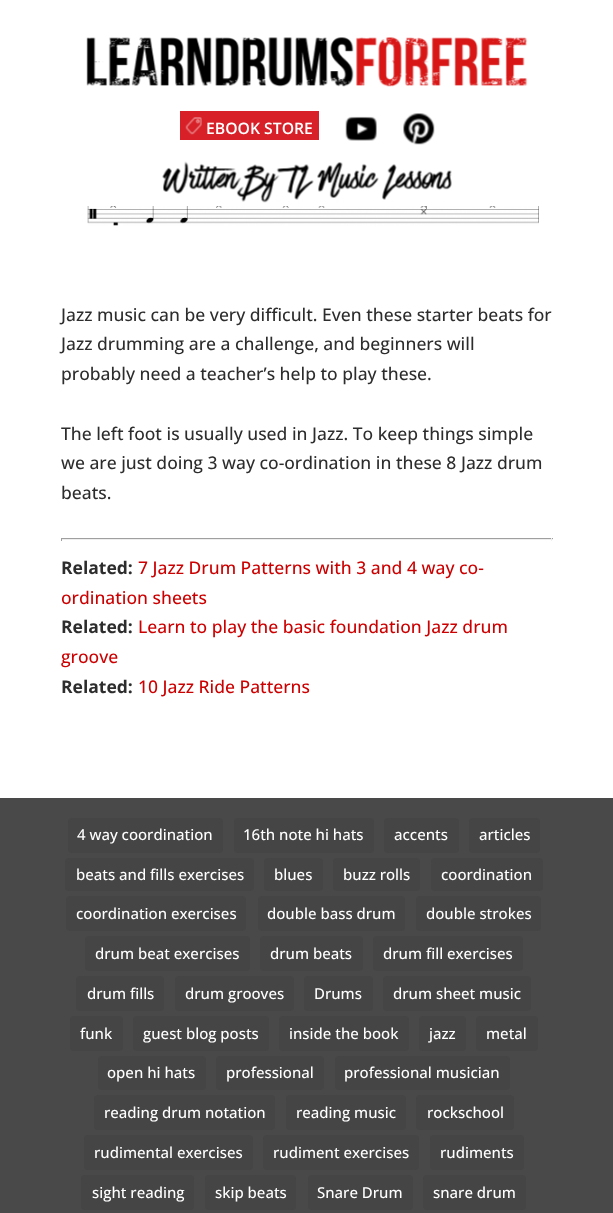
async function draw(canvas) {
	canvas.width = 613;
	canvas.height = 1213;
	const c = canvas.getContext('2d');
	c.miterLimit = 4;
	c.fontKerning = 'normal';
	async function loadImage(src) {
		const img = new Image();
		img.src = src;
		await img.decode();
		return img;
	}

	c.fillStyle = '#fff';
	c.fillRect(0, 0, 613, 1213);
	c.drawImage(await loadImage('img1.png'), 86, 37, 442, 50);
	c.fillStyle = '#d72027';
	c.fillRect(180, 111, 139, 29);
	c.drawImage(await loadImage('img2.png'), 185, 117, 17, 18);
	c.font = '600 15.75px Open Sans';
	c.fillStyle = '#fff';
	c.fillText('EBOOK STORE', 206, 134);
	c.drawImage(await loadImage('img3.png'), 345, 116, 32, 25);
	c.drawImage(await loadImage('img4.png'), 403, 113, 32, 32);
	c.drawImage(await loadImage('img5.png'), 162, 161, 290, 42);
	c.drawImage(await loadImage('img6.png'), 87, 206, 452, 20);
	c.font = '500 17.5px Open Sans';
	c.fillStyle = '#2d2d2d';
	for (const [text, x, y] of [
		['Jazz music can be very difficult. Even these starter beats for', 61, 321],
		['Jazz drumming are a challenge, and beginners will', 61, 350],
		['probably need a teacher’s help to play these.', 61, 380],
		['The left foot is usually used in Jazz. To keep things simple', 61, 440],
		['we are just doing 3 way co-ordination in these 8 Jazz drum', 61, 469],
		['beats.', 61, 499],
	]) {
		c.fillText(text, x, y);
	}
	for (const [x, y, w, h, color] of [
		[61, 538, 492, 1, '#9f9f9f'],
		[551, 538, 1, 3, '#eee'],
		[61, 539, 492, 1, '#eee'],
		[61, 538, 1, 3, '#9f9f9f'],
	]) {
		c.fillStyle = color;
		c.fillRect(x, y, w, h);
	}
	c.font = 'bold 17.5px Open Sans';
	c.fillStyle = '#2d2d2d';
	c.fillText('Related:', 61, 574);
	c.font = '500 17.5px Open Sans';
	c.fillStyle = '#c00';
	c.fillText('7 Jazz Drum Patterns with 3 and 4 way co-', 138, 574);
	c.fillText('ordination sheets', 61, 604);
	c.font = 'bold 17.5px Open Sans';
	c.fillStyle = '#2d2d2d';
	c.fillText('Related:', 61, 633);
	c.font = '500 17.5px Open Sans';
	c.fillStyle = '#c00';
	c.fillText('Learn to play the basic foundation Jazz drum', 138, 633);
	c.fillText('groove', 61, 663);
	c.font = 'bold 17.5px Open Sans';
	c.fillStyle = '#2d2d2d';
	c.fillText('Related:', 61, 693);
	c.font = '500 17.5px Open Sans';
	c.fillStyle = '#c00';
	c.fillText('10 Jazz Ride Patterns', 138, 693);
	c.fillStyle = '#494949';
	c.fillRect(0, 798, 613, 415);
	c.fillStyle = '#454545';
	c.beginPath();
	c.roundRect(68, 818, 155, 35, 4);
	c.fill();
	c.font = '500 15px Open Sans';
	c.fillStyle = '#fff';
	c.fillText('4 way coordination', 77, 840);
	c.fillStyle = '#454545';
	c.beginPath();
	c.roundRect(234, 818, 140, 35, 4);
	c.fill();
	c.fillStyle = '#fff';
	c.fillText('16th note hi hats', 243, 840);
	c.fillStyle = '#454545';
	c.beginPath();
	c.roundRect(384, 818, 75, 35, 4);
	c.fill();
	c.fillStyle = '#fff';
	c.fillText('accents', 394, 840);
	c.fillStyle = '#454545';
	c.beginPath();
	c.roundRect(469, 818, 71, 35, 4);
	c.fill();
	c.fillStyle = '#fff';
	c.fillText('articles', 479, 840);
	c.fillStyle = '#454545';
	c.beginPath();
	c.roundRect(65, 858, 189, 33, 4);
	c.fill();
	c.fillStyle = '#fff';
	c.fillText('beats and fills exercises', 76, 880);
	c.fillStyle = '#454545';
	c.beginPath();
	c.roundRect(264, 858, 59, 33, 4);
	c.fill();
	c.fillStyle = '#fff';
	c.fillText('blues', 274, 880);
	c.fillStyle = '#454545';
	c.beginPath();
	c.roundRect(333, 858, 87, 33, 4);
	c.fill();
	c.fillStyle = '#fff';
	c.fillText('buzz rolls', 343, 880);
	c.fillStyle = '#454545';
	c.beginPath();
	c.roundRect(431, 858, 112, 33, 4);
	c.fill();
	c.fillStyle = '#fff';
	c.fillText('coordination', 441, 880);
	c.fillStyle = '#454545';
	c.beginPath();
	c.roundRect(66, 896, 180, 35, 4);
	c.fill();
	c.fillStyle = '#fff';
	c.fillText('coordination exercises', 76, 919);
	c.fillStyle = '#454545';
	c.beginPath();
	c.roundRect(258, 896, 147, 35, 4);
	c.fill();
	c.fillStyle = '#fff';
	c.fillText('double bass drum', 267, 919);
	c.fillStyle = '#454545';
	c.beginPath();
	c.roundRect(416, 896, 125, 35, 4);
	c.fill();
	c.fillStyle = '#fff';
	c.fillText('double strokes', 426, 919);
	c.fillStyle = '#454545';
	c.beginPath();
	c.roundRect(85, 936, 165, 35, 4);
	c.fill();
	c.fillStyle = '#fff';
	c.fillText('drum beat exercises', 95, 959);
	c.fillStyle = '#454545';
	c.beginPath();
	c.roundRect(260, 936, 103, 35, 4);
	c.fill();
	c.fillStyle = '#fff';
	c.fillText('drum beats', 270, 959);
	c.fillStyle = '#454545';
	c.beginPath();
	c.roundRect(373, 936, 150, 35, 4);
	c.fill();
	c.fillStyle = '#fff';
	c.fillText('drum fill exercises', 383, 959);
	c.fillStyle = '#454545';
	c.beginPath();
	c.roundRect(76, 976, 88, 35, 4);
	c.fill();
	c.fillStyle = '#fff';
	c.fillText('drum fills', 87, 999);
	c.fillStyle = '#454545';
	c.beginPath();
	c.roundRect(175, 976, 119, 35, 4);
	c.fill();
	c.fillStyle = '#fff';
	c.fillText('drum grooves', 185, 999);
	c.fillStyle = '#454545';
	c.beginPath();
	c.roundRect(304, 976, 69, 35, 4);
	c.fill();
	c.fillStyle = '#fff';
	c.fillText('Drums', 314, 999);
	c.fillStyle = '#454545';
	c.beginPath();
	c.roundRect(383, 976, 148, 35, 4);
	c.fill();
	c.fillStyle = '#fff';
	c.fillText('drum sheet music', 393, 999);
	c.fillStyle = '#454545';
	c.beginPath();
	c.roundRect(70, 1016, 53, 35, 4);
	c.fill();
	c.fillStyle = '#fff';
	c.fillText('funk', 80, 1039);
	c.fillStyle = '#454545';
	c.beginPath();
	c.roundRect(133, 1016, 136, 35, 4);
	c.fill();
	c.fillStyle = '#fff';
	c.fillText('guest blog posts', 143, 1039);
	c.fillStyle = '#454545';
	c.beginPath();
	c.roundRect(279, 1016, 130, 35, 4);
	c.fill();
	c.fillStyle = '#fff';
	c.fillText('inside the book', 289, 1039);
	c.fillStyle = '#454545';
	c.beginPath();
	c.roundRect(419, 1016, 47, 35, 4);
	c.fill();
	c.fillStyle = '#fff';
	c.fillText('jazz', 429, 1039);
	c.fillStyle = '#454545';
	c.beginPath();
	c.roundRect(476, 1016, 62, 35, 4);
	c.fill();
	c.fillStyle = '#fff';
	c.fillText('metal', 486, 1039);
	c.fillStyle = '#454545';
	c.beginPath();
	c.roundRect(98, 1056, 108, 34, 4);
	c.fill();
	c.fillStyle = '#fff';
	c.fillText('open hi hats', 107, 1078);
	c.fillStyle = '#454545';
	c.beginPath();
	c.roundRect(216, 1056, 108, 34, 4);
	c.fill();
	c.fillStyle = '#fff';
	c.fillText('professional', 226, 1078);
	c.fillStyle = '#454545';
	c.beginPath();
	c.roundRect(335, 1056, 175, 34, 4);
	c.fill();
	c.fillStyle = '#fff';
	c.fillText('professional musician', 344, 1078);
	c.fillStyle = '#454545';
	c.beginPath();
	c.roundRect(94, 1095, 181, 35, 4);
	c.fill();
	c.fillStyle = '#fff';
	c.fillText('reading drum notation', 104, 1118);
	c.fillStyle = '#454545';
	c.beginPath();
	c.roundRect(286, 1095, 120, 35, 4);
	c.fill();
	c.fillStyle = '#fff';
	c.fillText('reading music', 296, 1118);
	c.fillStyle = '#454545';
	c.beginPath();
	c.roundRect(416, 1095, 98, 35, 4);
	c.fill();
	c.fillStyle = '#fff';
	c.fillText('rockschool', 427, 1118);
	c.fillStyle = '#454545';
	c.beginPath();
	c.roundRect(84, 1135, 169, 35, 4);
	c.fill();
	c.fillStyle = '#fff';
	c.fillText('rudimental exercises', 94, 1158);
	c.fillStyle = '#454545';
	c.beginPath();
	c.roundRect(263, 1135, 156, 35, 4);
	c.fill();
	c.fillStyle = '#fff';
	c.fillText('rudiment exercises', 273, 1158);
	c.fillStyle = '#454545';
	c.beginPath();
	c.roundRect(430, 1135, 94, 35, 4);
	c.fill();
	c.fillStyle = '#fff';
	c.fillText('rudiments', 440, 1158);
	c.fillStyle = '#454545';
	c.beginPath();
	c.roundRect(81, 1175, 113, 35, 4);
	c.fill();
	c.fillStyle = '#fff';
	c.fillText('sight reading', 92, 1198);
	c.fillStyle = '#454545';
	c.beginPath();
	c.roundRect(205, 1175, 91, 35, 4);
	c.fill();
	c.fillStyle = '#fff';
	c.fillText('skip beats', 215, 1198);
	c.fillStyle = '#454545';
	c.beginPath();
	c.roundRect(308, 1175, 105, 35, 4);
	c.fill();
	c.fillStyle = '#fff';
	c.fillText('Snare Drum', 317, 1198);
	c.fillStyle = '#454545';
	c.beginPath();
	c.roundRect(423, 1175, 103, 35, 4);
	c.fill();
	c.fillStyle = '#fff';
	c.fillText('snare drum', 433, 1198);
}

draw(document.querySelector('canvas'));
